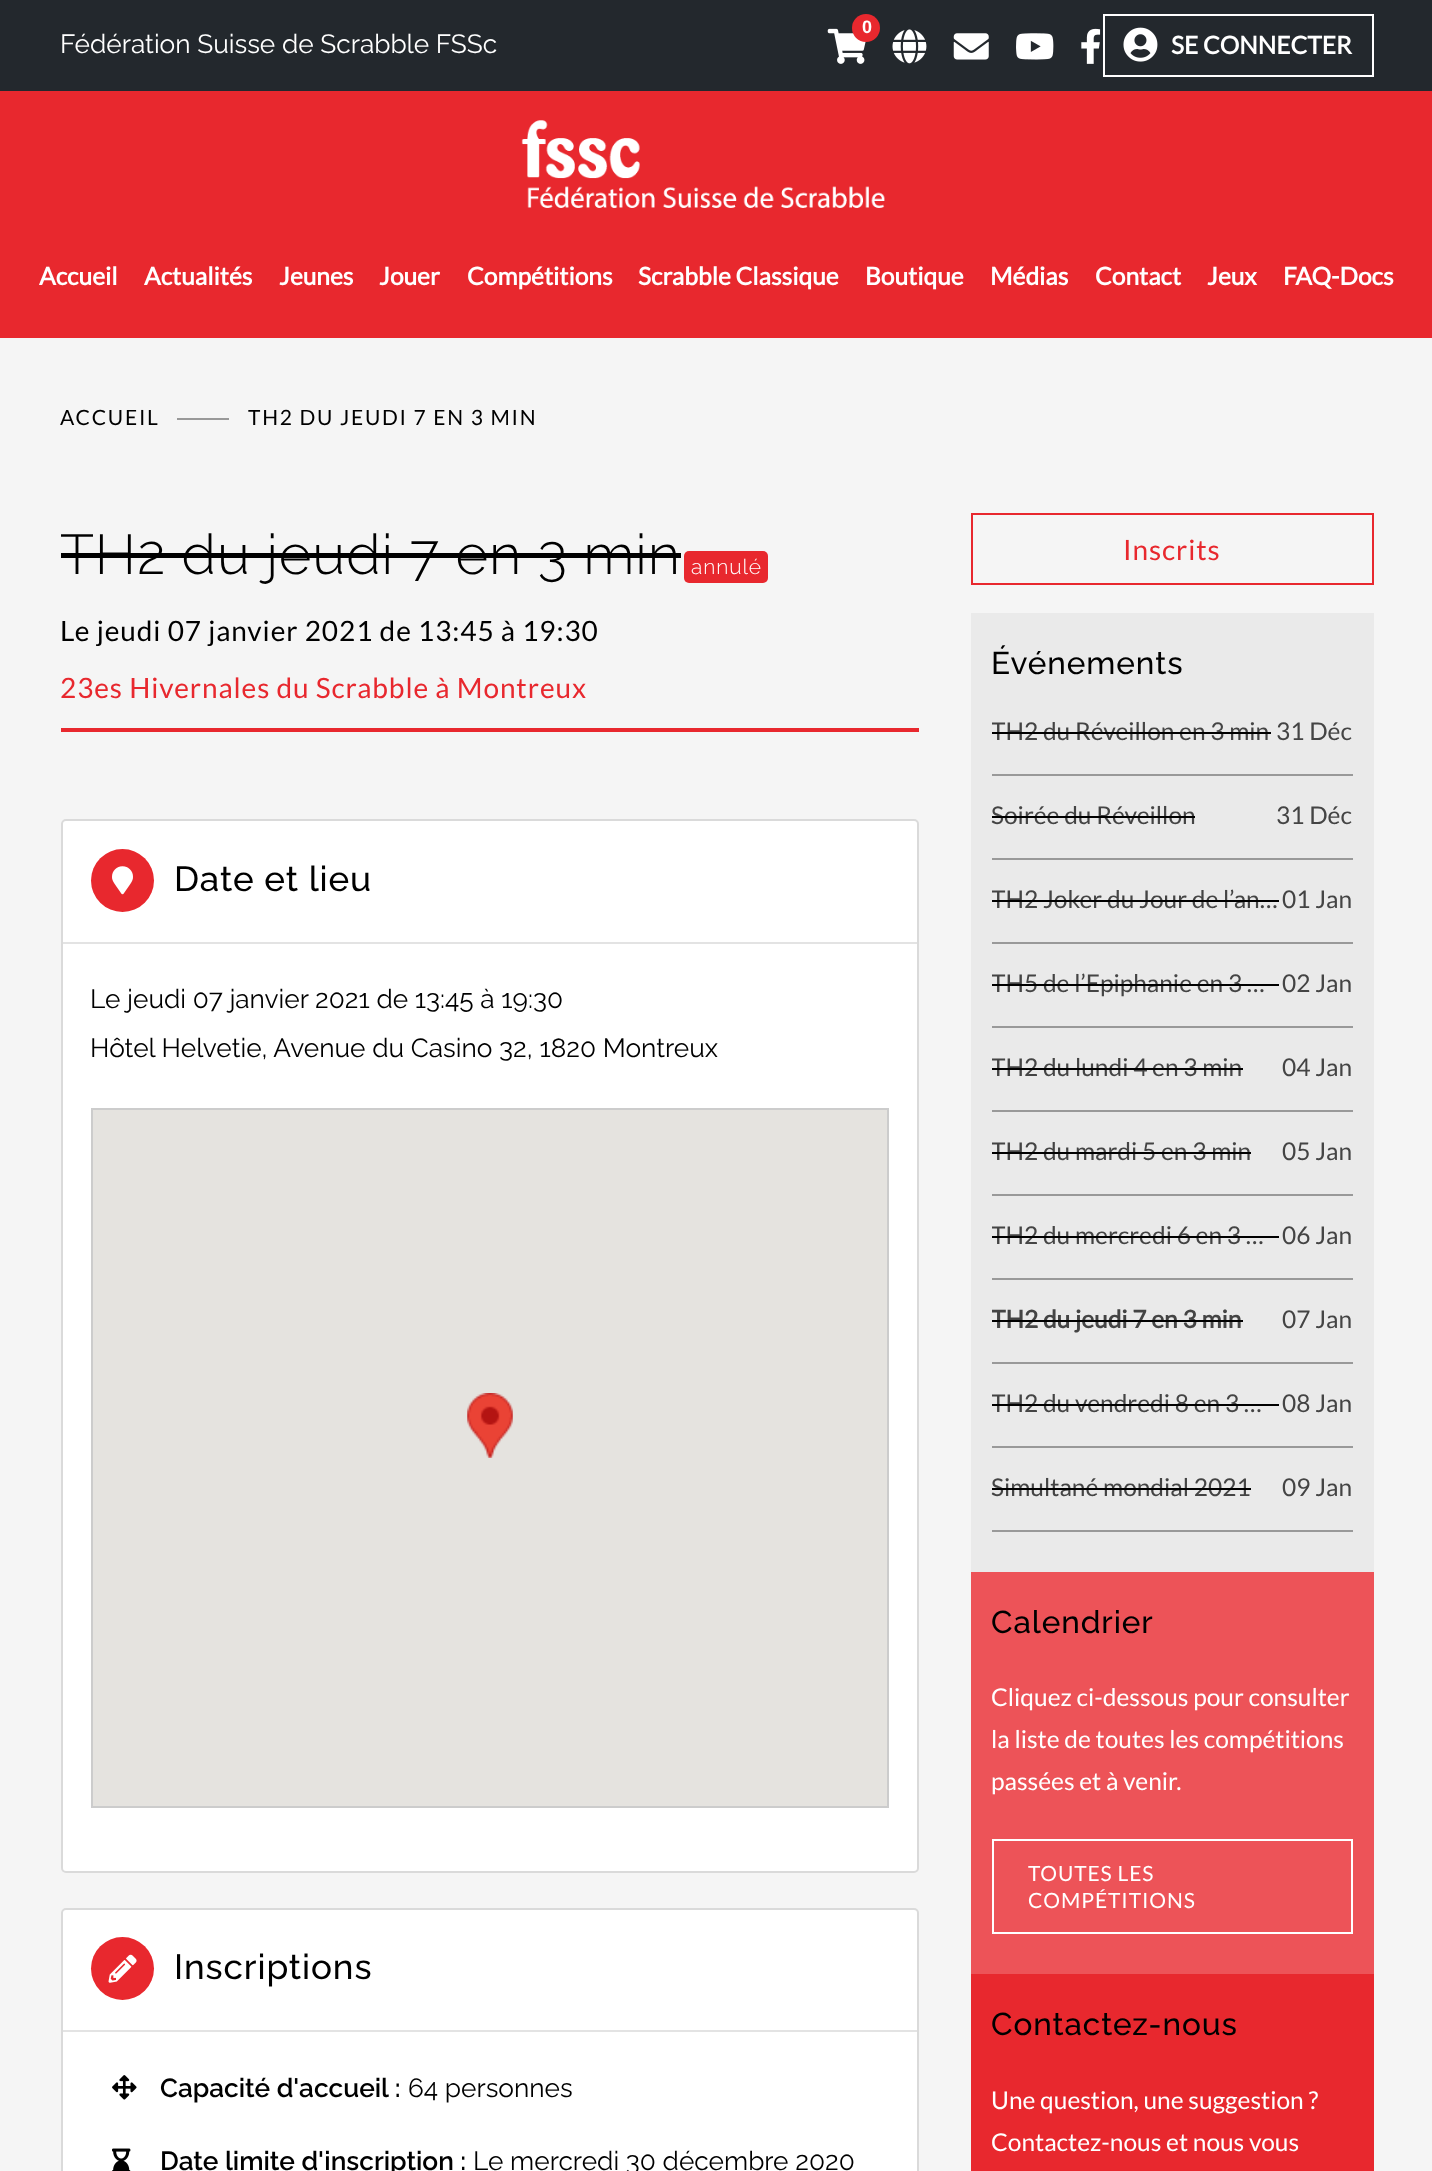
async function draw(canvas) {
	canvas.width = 1432;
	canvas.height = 2171;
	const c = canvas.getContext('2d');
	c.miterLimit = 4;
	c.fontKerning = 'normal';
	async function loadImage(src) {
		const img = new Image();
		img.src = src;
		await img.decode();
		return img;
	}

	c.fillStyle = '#f5f5f5';
	c.fillRect(0, 0, 1432, 2171);
	c.fillStyle = '#e8282e';
	c.fillRect(0, 91, 1432, 247);
	c.fillStyle = '#23282d';
	c.fillRect(0, 0, 1432, 91);
	c.font = '26.25px Raleway';
	c.fillStyle = '#fff';
	c.fillText('Fédération Suisse de Scrabble FSSc', 60, 53);
	c.drawImage(await loadImage('img1.png'), 827, 28, 39, 36);
	c.fillStyle = '#e8282e';
	c.beginPath();
	c.arc(866, 28, 14, 0, 2 * Math.PI);
	c.fill();
	c.font = 'bold 18px Liberation Sans';
	c.fillStyle = '#fff';
	c.fillText('0', 862, 33);
	c.drawImage(await loadImage('img2.png'), 892, 29, 35, 35);
	c.drawImage(await loadImage('img3.png'), 953, 33, 36, 27);
	c.drawImage(await loadImage('img4.png'), 1016, 33, 38, 27);
	c.drawImage(await loadImage('img5.png'), 1081, 28, 20, 36);
	c.strokeStyle = '#fff';
	c.lineWidth = 2;
	c.strokeRect(1104, 15, 269, 61);
	c.drawImage(await loadImage('img6.png'), 1123, 27, 35, 35);
	c.font = 'bold 24.5px Lato';
	c.fillText('SE CONNECTER', 1171, 54);
	c.drawImage(await loadImage('img7.png'), 521, 120, 364, 88);
	for (const [text, x, y] of [
		['Accueil', 39, 285],
		['Actualités', 144, 285],
		['Jeunes', 279, 285],
		['Jouer', 379, 285],
		['Compétitions', 467, 285],
		['Scrabble Classique', 638, 285],
		['Boutique', 865, 285],
		['Médias', 990, 285],
		['Contact', 1095, 285],
		['Jeux', 1207, 285],
		['FAQ-Docs', 1283, 285],
	]) {
		c.fillText(text, x, y);
	}
	c.letterSpacing = '1.75px';
	c.font = '21px Lato';
	c.fillStyle = '#000';
	c.fillText('ACCUEIL', 60, 425);
	c.fillStyle = '#999';
	c.fillRect(177, 418, 52, 2);
	c.fillStyle = '#000';
	c.fillText('TH2 DU JEUDI 7 EN 3 MIN', 248, 425);
	c.fillStyle = '#e8282e';
	c.fillRect(61, 728, 858, 4);
	c.letterSpacing = '0.9px';
	c.font = '300 56px Raleway';
	c.fillStyle = '#000';
	c.fillText('TH2 du jeudi 7 en 3 min', 60, 574);
	c.fillRect(61, 553, 620, 5);
	c.fillStyle = '#e8282e';
	c.beginPath();
	c.roundRect(684, 551, 84, 32, 5);
	c.fill();
	c.font = '300 21px Raleway';
	c.fillStyle = '#fff';
	c.fillText('annulé', 691, 574);
	c.font = '28px Lato';
	c.fillStyle = '#000';
	c.fillText('Le jeudi 07 janvier 2021 de 13:45 à 19:30', 60, 641);
	c.fillStyle = '#e8282e';
	c.fillText('23es Hivernales du Scrabble à Montreux', 60, 698);
	c.fillStyle = '#fff';
	c.beginPath();
	c.roundRect(62, 820, 856, 1052, 4);
	c.fill();
	c.strokeStyle = '#dadada';
	c.stroke();
	c.fillStyle = '#e8282e';
	c.beginPath();
	c.arc(122.5, 880.5, 31.5, 0, 2 * Math.PI);
	c.fill();
	c.font = '500 35px Raleway';
	c.fillStyle = '#000';
	c.fillText('Date et lieu', 174, 891);
	c.drawImage(await loadImage('img8.png'), 112, 866, 21, 29);
	c.fillStyle = '#e3e3e3';
	c.fillRect(63, 942, 854, 2);
	c.letterSpacing = '0px';
	c.font = '26.25px Raleway';
	c.fillStyle = '#000';
	c.fillText('Le jeudi 07 janvier 2021 de 13:45 à 19:30', 90, 1008);
	c.fillText('Hôtel Helvetie, Avenue du Casino 32, 1820 Montreux', 90, 1057);
	c.strokeStyle = '#ccc';
	c.strokeRect(92, 1109, 796, 698);
	c.fillStyle = '#e5e3df';
	c.fillRect(93, 1110, 794, 696);
	c.drawImage(await loadImage('img9.png'), 467, 1393, 46, 65);
	c.fillStyle = '#fff';
	c.beginPath();
	c.roundRect(62, 1909, 856, 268, 4);
	c.fill();
	c.strokeStyle = '#dadada';
	c.stroke();
	c.fillStyle = '#e8282e';
	c.beginPath();
	c.arc(122.5, 1968.5, 31.5, 0, 2 * Math.PI);
	c.fill();
	c.letterSpacing = '0.9px';
	c.font = '500 35px Raleway';
	c.fillStyle = '#000';
	c.fillText('Inscriptions', 174, 1979);
	c.drawImage(await loadImage('img10.png'), 108, 1954, 29, 29);
	c.fillStyle = '#e3e3e3';
	c.fillRect(63, 2030, 854, 2);
	c.drawImage(await loadImage('img11.png'), 112, 2075, 25, 25);
	c.letterSpacing = '0px';
	c.font = '600 26.25px Raleway';
	c.fillStyle = '#000';
	c.fillText('Capacité d\'accueil :', 160, 2097);
	c.font = '26.25px Raleway';
	c.fillText('64 personnes', 408, 2097);
	c.drawImage(await loadImage('img12.png'), 112, 2148, 19, 23);
	c.font = '600 26.25px Raleway';
	c.fillText('Date limite d\'inscription :', 160, 2170);
	c.font = '26.25px Raleway';
	c.fillText('Le mercredi 30 décembre 2020', 473, 2170);
	c.strokeStyle = '#e8282e';
	c.strokeRect(972, 514, 401, 70);
	c.letterSpacing = '0.9px';
	c.font = '28px Lato';
	c.fillStyle = '#e8282e';
	c.fillText('Inscrits', 1123, 560);
	c.fillStyle = '#eaeaea';
	c.fillRect(971, 613, 403, 959);
	c.font = '500 31.5px Raleway';
	c.fillStyle = '#000';
	c.fillText('Événements', 991, 674);
	c.fillStyle = '#999';
	c.fillRect(992, 774, 361, 2);
	c.save();
	c.beginPath();
	c.rect(992, 711, 279, 42);
	c.clip();
	c.letterSpacing = '0px';
	c.font = '24.5px Lato';
	c.fillStyle = '#444';
	c.fillText('TH2 du Réveillon en 3 min', 991, 740);
	c.restore();
	c.fillStyle = '#000';
	c.fillRect(992, 732, 279, 2);
	c.letterSpacing = '0px';
	c.font = '24.5px Lato';
	c.fillStyle = '#444';
	c.fillText('31 Déc', 1276, 740);
	c.fillStyle = '#999';
	c.fillRect(992, 858, 361, 2);
	c.fillStyle = '#444';
	c.fillText('Soirée du Réveillon', 991, 824);
	c.fillStyle = '#000';
	c.fillRect(992, 816, 203, 2);
	c.fillStyle = '#444';
	c.fillText('31 Déc', 1276, 824);
	c.fillStyle = '#999';
	c.fillRect(992, 942, 361, 2);
	c.save();
	c.beginPath();
	c.rect(992, 879, 287, 42);
	c.clip();
	c.fillStyle = '#444';
	c.fillText('TH2 Joker du Jour de l’an…', 991, 908);
	c.restore();
	c.fillStyle = '#000';
	c.fillRect(992, 900, 287, 2);
	c.fillStyle = '#444';
	c.fillText('01 Jan', 1282, 908);
	c.fillStyle = '#999';
	c.fillRect(992, 1026, 361, 2);
	c.save();
	c.beginPath();
	c.rect(992, 963, 287, 42);
	c.clip();
	c.fillStyle = '#444';
	c.fillText('TH5 de l’Epiphanie en 3 …', 991, 992);
	c.restore();
	c.fillStyle = '#000';
	c.fillRect(992, 984, 287, 2);
	c.fillStyle = '#444';
	c.fillText('02 Jan', 1282, 992);
	c.fillStyle = '#999';
	c.fillRect(992, 1110, 361, 2);
	c.save();
	c.beginPath();
	c.rect(992, 1047, 251, 42);
	c.clip();
	c.fillStyle = '#444';
	c.fillText('TH2 du lundi 4 en 3 min', 991, 1076);
	c.restore();
	c.fillStyle = '#000';
	c.fillRect(992, 1068, 251, 2);
	c.fillStyle = '#444';
	c.fillText('04 Jan', 1282, 1076);
	c.fillStyle = '#999';
	c.fillRect(992, 1194, 361, 2);
	c.save();
	c.beginPath();
	c.rect(992, 1131, 259, 42);
	c.clip();
	c.fillStyle = '#444';
	c.fillText('TH2 du mardi 5 en 3 min', 991, 1160);
	c.restore();
	c.fillStyle = '#000';
	c.fillRect(992, 1152, 259, 2);
	c.fillStyle = '#444';
	c.fillText('05 Jan', 1282, 1160);
	c.fillStyle = '#999';
	c.fillRect(992, 1278, 361, 2);
	c.save();
	c.beginPath();
	c.rect(992, 1215, 287, 42);
	c.clip();
	c.fillStyle = '#444';
	c.fillText('TH2 du mercredi 6 en 3 …', 991, 1244);
	c.restore();
	c.fillStyle = '#000';
	c.fillRect(992, 1236, 287, 2);
	c.fillStyle = '#444';
	c.fillText('06 Jan', 1282, 1244);
	c.fillStyle = '#999';
	c.fillRect(992, 1362, 361, 2);
	c.save();
	c.beginPath();
	c.rect(992, 1299, 251, 42);
	c.clip();
	c.font = 'bold 24.5px Lato';
	c.fillStyle = '#444';
	c.fillText('TH2 du jeudi 7 en 3 min', 991, 1328);
	c.restore();
	c.fillStyle = '#000';
	c.fillRect(992, 1320, 251, 2);
	c.fillStyle = '#444';
	c.fillText('07 Jan', 1282, 1328);
	c.fillStyle = '#999';
	c.fillRect(992, 1446, 361, 2);
	c.save();
	c.beginPath();
	c.rect(992, 1383, 287, 42);
	c.clip();
	c.fillStyle = '#444';
	c.fillText('TH2 du vendredi 8 en 3 …', 991, 1412);
	c.restore();
	c.fillStyle = '#000';
	c.fillRect(992, 1404, 287, 2);
	c.fillStyle = '#444';
	c.fillText('08 Jan', 1282, 1412);
	c.fillStyle = '#999';
	c.fillRect(992, 1530, 361, 2);
	c.fillStyle = '#444';
	c.fillText('Simultané mondial 2021', 991, 1496);
	c.fillStyle = '#000';
	c.fillRect(992, 1488, 259, 2);
	c.fillStyle = '#444';
	c.fillText('09 Jan', 1282, 1496);
	c.fillStyle = '#ed5358';
	c.fillRect(971, 1572, 403, 402);
	c.letterSpacing = '0.9px';
	c.font = '500 31.5px Raleway';
	c.fillStyle = '#000';
	c.fillText('Calendrier', 991, 1633);
	c.letterSpacing = '0px';
	c.font = '24.5px Lato';
	c.fillStyle = '#fff';
	for (const [text, x, y] of [
		['Cliquez ci-dessous pour consulter', 991, 1706],
		['la liste de toutes les compétitions', 991, 1748],
		['passées et à venir.', 991, 1790],
	]) {
		c.fillText(text, x, y);
	}
	c.strokeStyle = '#fff';
	c.strokeRect(993, 1840, 359, 93);
	c.letterSpacing = '0.9px';
	c.font = '21px Lato';
	c.fillText('TOUTES LES', 1028, 1881);
	c.fillText('COMPÉTITIONS', 1028, 1908);
	c.fillStyle = '#e8282e';
	c.fillRect(971, 1974, 403, 197);
	c.font = '500 31.5px Raleway';
	c.fillStyle = '#000';
	c.fillText('Contactez-nous', 991, 2035);
	c.letterSpacing = '0px';
	c.font = '24.5px Lato';
	c.fillStyle = '#fff';
	c.fillText('Une question, une suggestion ?', 991, 2109);
	c.fillText('Contactez-nous et nous vous', 991, 2151);
}

draw(document.querySelector('canvas'));
